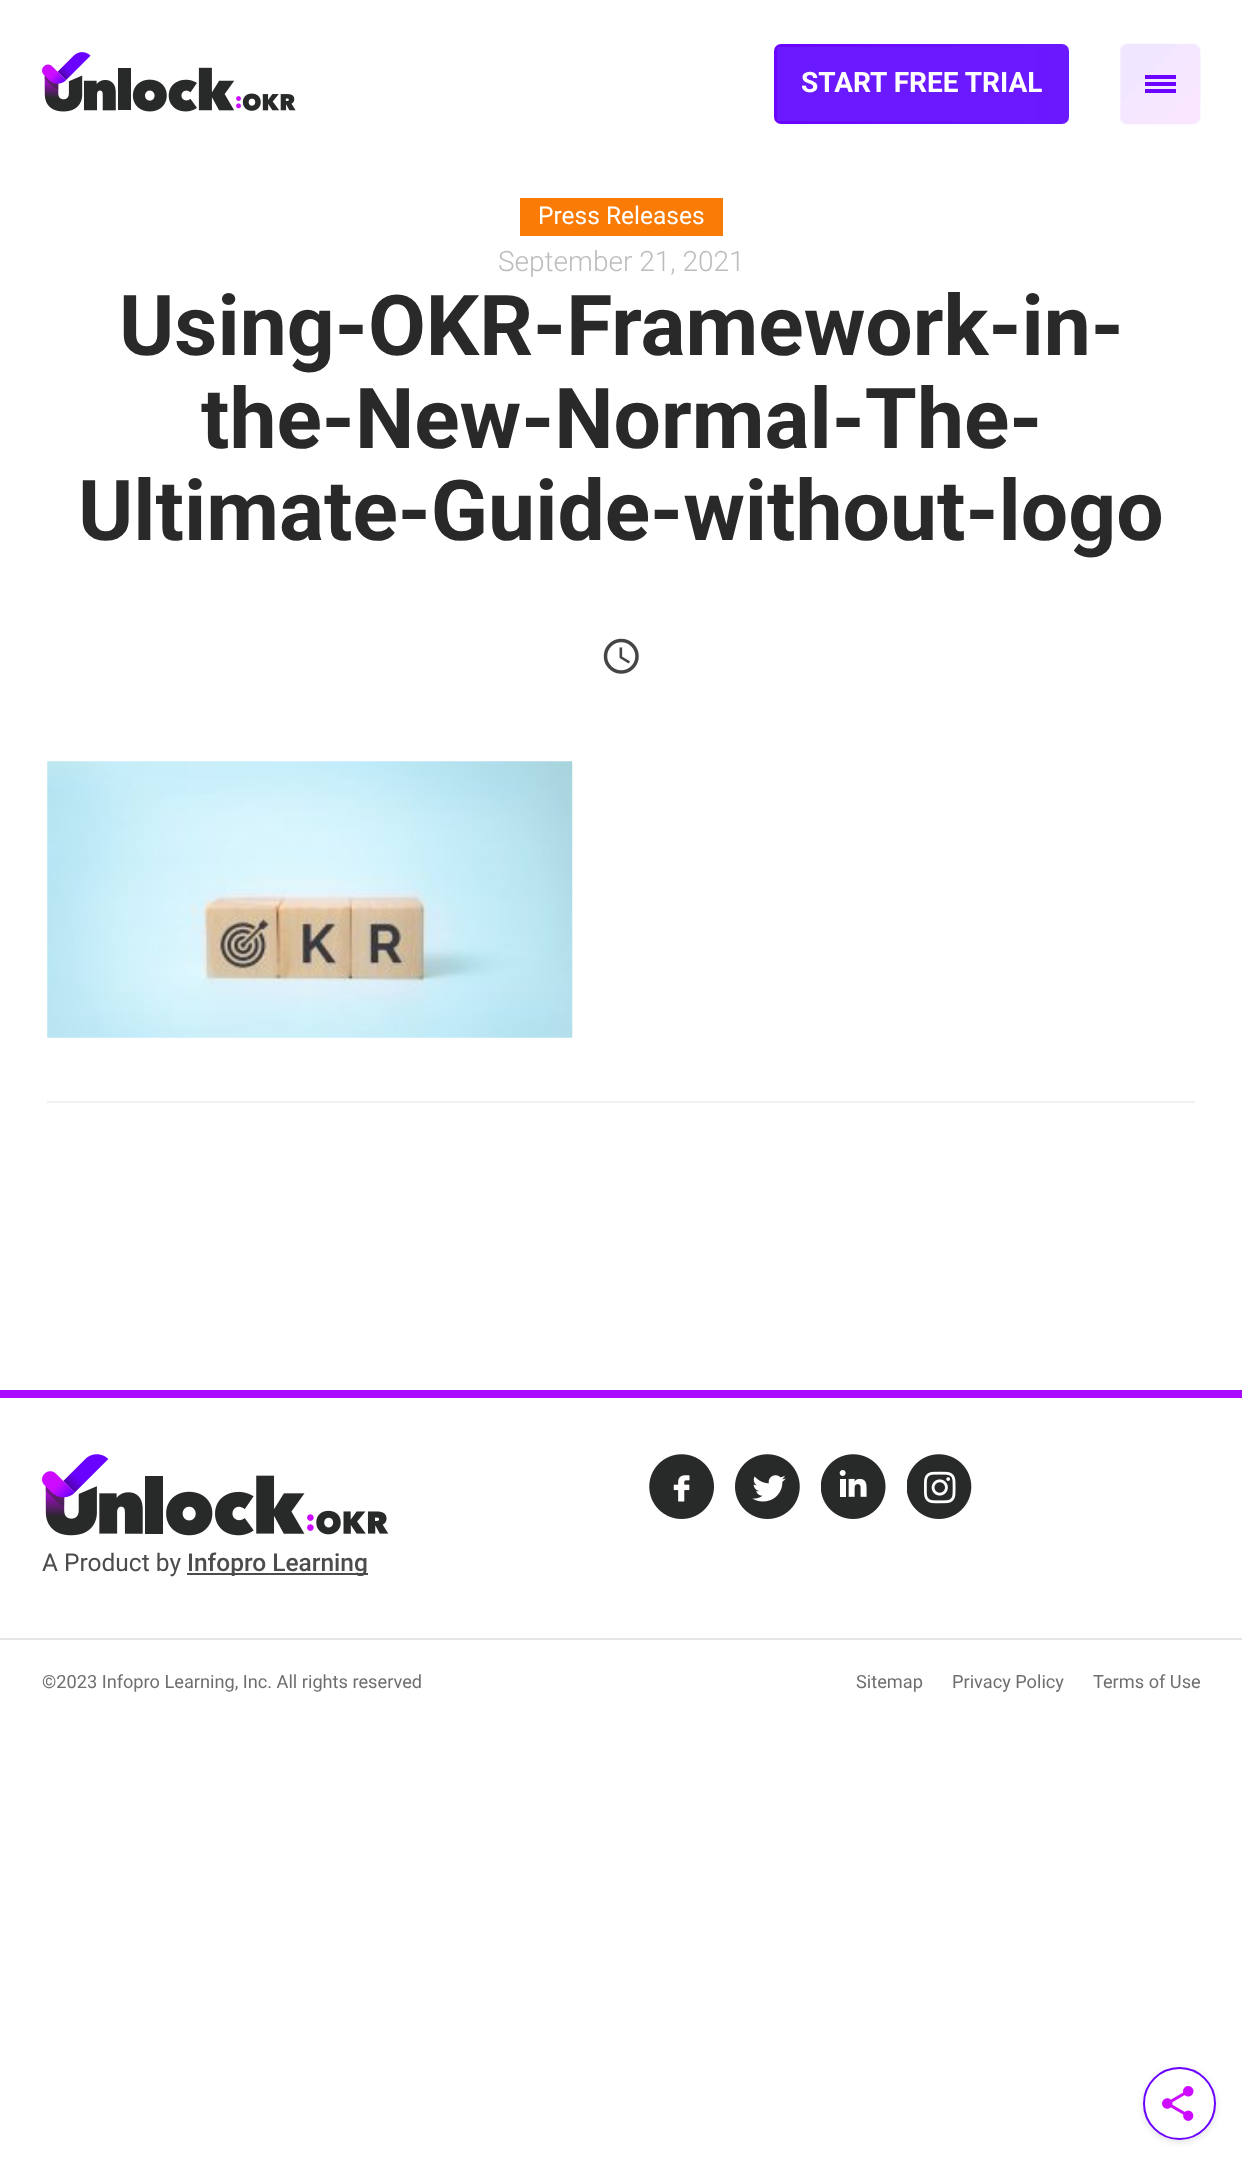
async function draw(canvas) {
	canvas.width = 1242;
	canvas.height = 2165;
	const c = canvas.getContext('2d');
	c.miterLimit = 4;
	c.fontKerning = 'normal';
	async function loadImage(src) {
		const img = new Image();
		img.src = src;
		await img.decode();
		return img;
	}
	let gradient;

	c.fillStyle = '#fff';
	c.fillRect(0, 0, 1242, 2165);
	c.drawImage(await loadImage('img1.png'), 42, 52, 254, 60);
	gradient = c.createLinearGradient(774, 84, 1069, 84);
	gradient.addColorStop(0, '#6b03ff');
	gradient.addColorStop(1, '#6b19ff');
	c.fillStyle = gradient;
	c.beginPath();
	c.roundRect(774, 44, 295, 80, 7);
	c.fill();
	c.fillStyle = '#6b19ff';
	c.fillRect(777, 47, 258, 74);
	c.font = 'bold 28px Roboto';
	c.fillStyle = '#fff';
	c.fillText('START FREE TRIAL', 801, 92);
	c.drawImage(await loadImage('img2.png'), 1120, 43, 81, 82);
	for (const [x, y, w, h, color] of [
		[1145, 75, 31, 4, '#6b03ff'],
		[1145, 82, 31, 4, '#6b03ff'],
		[1145, 89, 31, 4, '#6b03ff'],
		[520, 198, 203, 38, '#fa7b06'],
	]) {
		c.fillStyle = color;
		c.fillRect(x, y, w, h);
	}
	c.font = '24.5px Roboto';
	c.fillStyle = '#fff';
	c.fillText('Press Releases', 538, 224);
	c.font = '300 28px Roboto';
	c.fillStyle = '#bcbcbc';
	c.fillText('September 21, 2021', 498, 271);
	c.font = 'bold 84px Roboto';
	c.fillStyle = '#292929';
	for (const [text, x, y] of [
		['Using-OKR-Framework-in-', 119, 355],
		['the-New-Normal-The-', 201, 448],
		['Ultimate-Guide-without-logo', 78, 540],
	]) {
		c.fillText(text, x, y);
	}
	c.drawImage(await loadImage('img3.png'), 603, 638, 36, 36);
	c.drawImage(await loadImage('img4.png'), 47, 761, 526, 277);
	c.fillStyle = '#f0f0f0';
	c.fillRect(47, 1101, 1148, 2);
	c.fillStyle = '#0000001f';
	c.filter = 'blur(3.5px)';
	c.beginPath();
	c.roundRect(1143, 2069, 73, 73, 36.5);
	c.fill();
	c.filter = 'none';
	c.fillStyle = '#fff';
	c.beginPath();
	c.arc(1179.5, 2103.5, 35.5, 0, 2 * Math.PI);
	c.fill();
	c.strokeStyle = '#6b03ff';
	c.lineWidth = 2;
	c.stroke();
	c.drawImage(await loadImage('img5.png'), 1162, 2086, 32, 35);
	c.fillStyle = '#a90aff';
	c.fillRect(0, 1390, 1242, 8);
	c.drawImage(await loadImage('img6.png'), 649, 1454, 65, 65);
	c.drawImage(await loadImage('img7.png'), 735, 1454, 65, 65);
	c.drawImage(await loadImage('img8.png'), 821, 1454, 65, 65);
	c.drawImage(await loadImage('img9.png'), 907, 1454, 65, 65);
	c.drawImage(await loadImage('img10.png'), 42, 1454, 347, 82);
	c.font = '24.5px Roboto';
	c.fillStyle = '#4c4c4c';
	c.fillText('A Product by', 42, 1571);
	c.fillRect(187, 1573, 181, 2);
	c.font = '500 24.5px Roboto';
	c.fillText('Infopro Learning', 187, 1571);
	c.fillStyle = '#e6e6e6';
	c.fillRect(0, 1638, 1242, 2);
	c.font = '18.2px Roboto';
	c.fillStyle = '#6f6f6f';
	for (const [text, x, y] of [
		['©2023 Infopro Learning, Inc. All rights reserved', 42, 1688],
		['Sitemap', 856, 1688],
		['Privacy Policy', 952, 1688],
		['Terms of Use', 1093, 1688],
	]) {
		c.fillText(text, x, y);
	}
}

draw(document.querySelector('canvas'));
